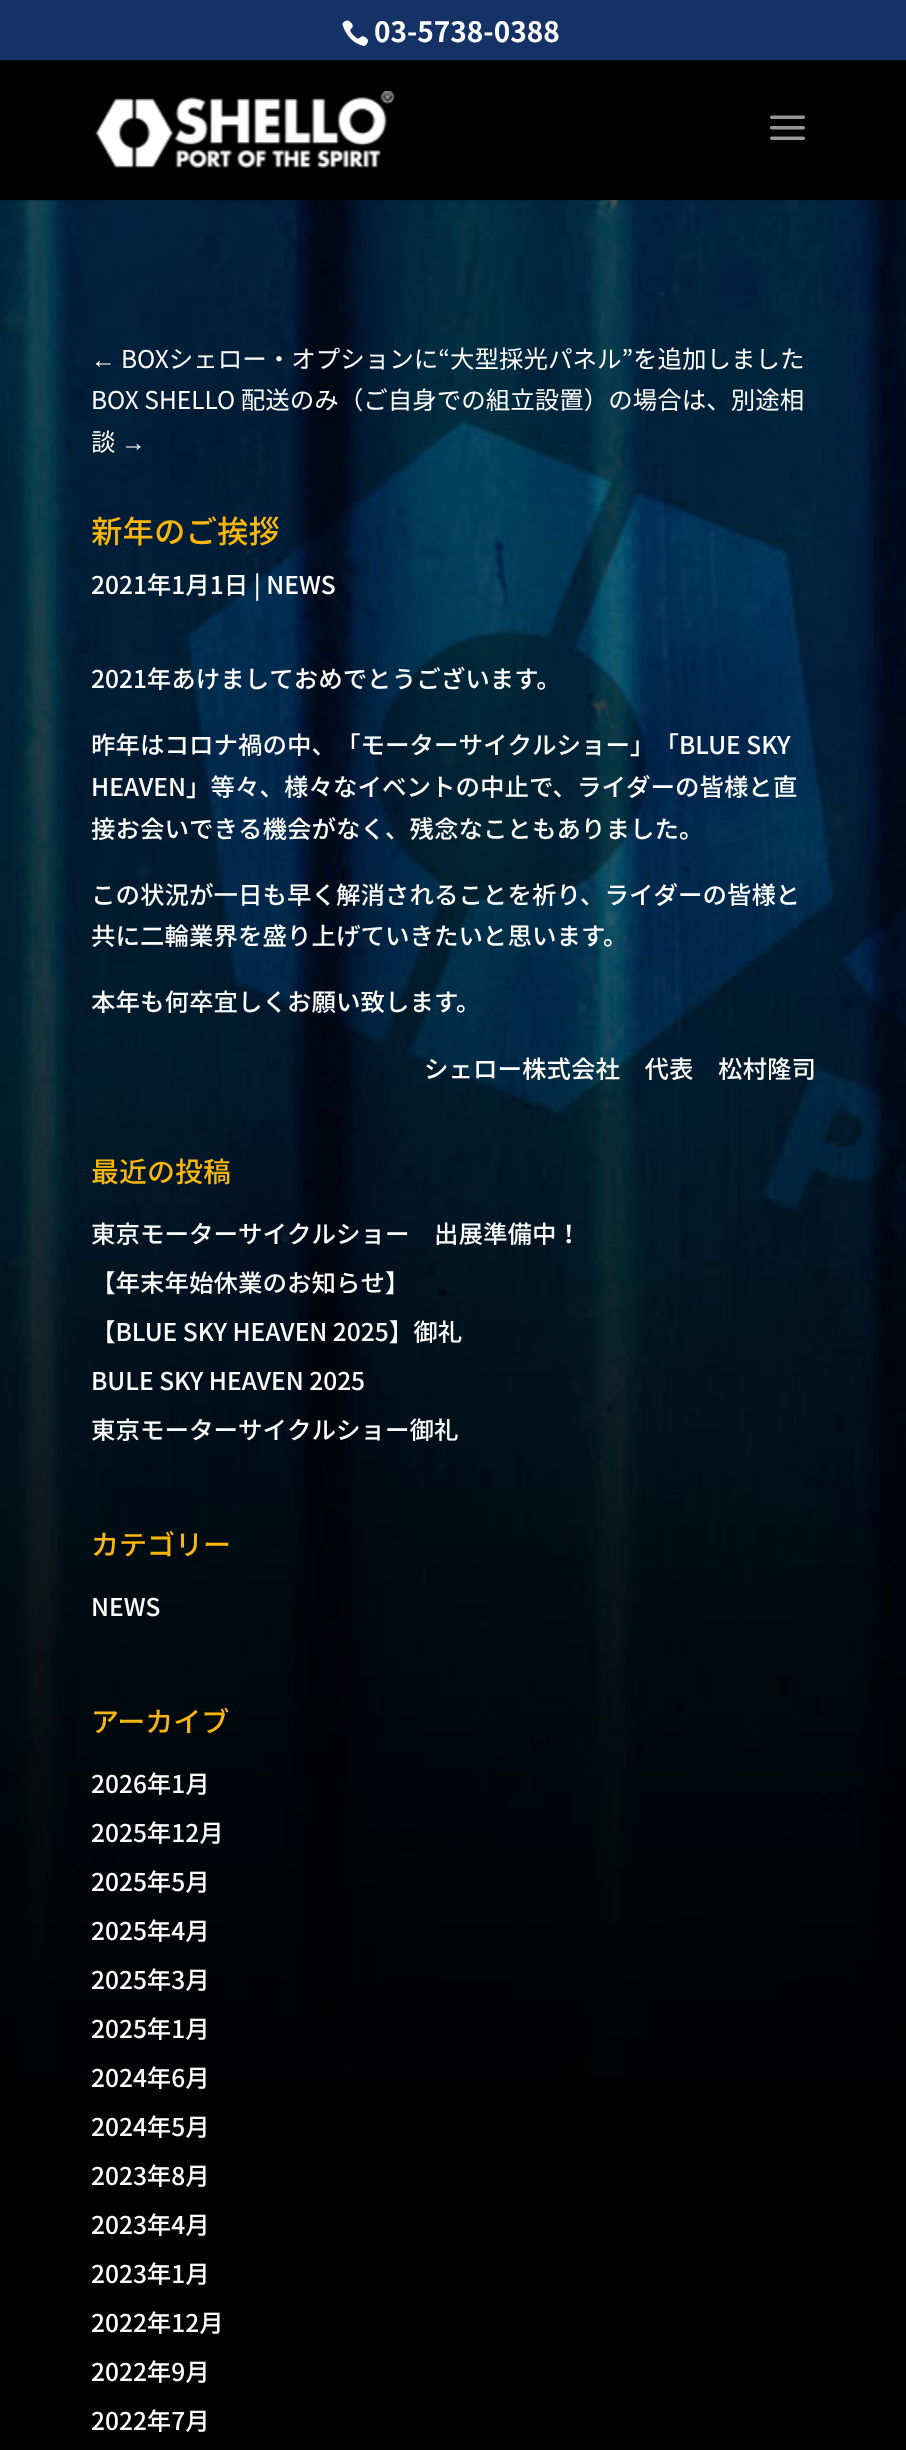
async function draw(canvas) {
	canvas.width = 906;
	canvas.height = 2450;
	const c = canvas.getContext('2d');
	c.miterLimit = 4;
	c.fontKerning = 'normal';
	async function loadImage(src) {
		const img = new Image();
		img.src = src;
		await img.decode();
		return img;
	}

	c.fillStyle = '#000';
	c.fillRect(0, 0, 906, 2450);
	c.fillStyle = '#153267';
	c.fillRect(0, 0, 906, 60);
	c.drawImage(await loadImage('img1.png'), 342, 20, 27, 27);
	c.font = 'bold 28px Noto Sans JP';
	c.fillStyle = '#fff';
	c.fillText('03-5738-0388', 374, 42);
	c.drawImage(await loadImage('img4.png'), 0, 200, 906, 1876);
	c.fillStyle = '#0000001a';
	c.beginPath();
	c.moveTo(0, 200);
	c.lineTo(0, 201);
	c.lineTo(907, 201);
	c.lineTo(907, 61);
	c.lineTo(906, 61);
	c.lineTo(906, 200);
	c.closePath();
	c.fill();
	c.drawImage(await loadImage('img2.png'), 95, 91, 300, 77);
	c.drawImage(await loadImage('img3.png'), 770, 115, 35, 25);
	c.font = '24.5px Liberation Sans';
	c.fillStyle = '#fff';
	c.fillText('←', 91, 368);
	c.font = '24.5px Noto Sans JP';
	for (const [text, x, y] of [
		['BOXシェロー・オプションに“大型採光パネル”を追加しました', 121, 368],
		['BOX SHELLO 配送のみ（ご自身での組立設置）の場合は、別途相', 91, 409],
		['談', 91, 451],
	]) {
		c.fillText(text, x, y);
	}
	c.font = '24.5px Liberation Sans';
	c.fillText('→', 121, 451);
	c.font = '500 31.5px Noto Sans JP';
	c.fillStyle = '#f9b60c';
	c.fillText('新年のご挨拶', 91, 543);
	c.font = '500 24.5px Noto Sans JP';
	c.fillStyle = '#fff';
	for (const [text, x, y] of [
		['2021年1月1日 | NEWS', 91, 594],
		['2021年あけましておめでとうございます。', 91, 688],
		['昨年はコロナ禍の中、「モーターサイクルショー」「BLUE SKY', 91, 754],
		['HEAVEN」等々、様々なイベントの中止で、ライダーの皆様と直', 91, 796],
		['接お会いできる機会がなく、残念なこともありました。', 91, 838],
		['この状況が一日も早く解消されることを祈り、ライダーの皆様と', 91, 904],
		['共に二輪業界を盛り上げていきたいと思います。', 91, 945],
		['本年も何卒宜しくお願い致します。', 91, 1011],
		['シェロー株式会社　代表　松村隆司', 424, 1078],
	]) {
		c.fillText(text, x, y);
	}
	c.font = '500 28px Noto Sans JP';
	c.fillStyle = '#f9b60c';
	c.fillText('最近の投稿', 91, 1182);
	c.font = '500 24.5px Noto Sans JP';
	c.fillStyle = '#fff';
	for (const [text, x, y] of [
		['東京モーターサイクルショー　出展準備中！', 91, 1243],
		['【年末年始休業のお知らせ】', 91, 1292],
		['【BLUE SKY HEAVEN 2025】御礼', 91, 1341],
		['BULE SKY HEAVEN 2025', 91, 1390],
		['東京モーターサイクルショー御礼', 91, 1439],
	]) {
		c.fillText(text, x, y);
	}
	c.font = '500 28px Noto Sans JP';
	c.fillStyle = '#f9b60c';
	c.fillText('カテゴリー', 91, 1555);
	c.font = '500 24.5px Noto Sans JP';
	c.fillStyle = '#fff';
	c.fillText('NEWS', 91, 1616);
	c.font = '500 28px Noto Sans JP';
	c.fillStyle = '#f9b60c';
	c.fillText('アーカイブ', 91, 1732);
	c.font = '500 24.5px Noto Sans JP';
	c.fillStyle = '#fff';
	for (const [text, x, y] of [
		['2026年1月', 91, 1793],
		['2025年12月', 91, 1842],
		['2025年5月', 91, 1891],
		['2025年4月', 91, 1940],
		['2025年3月', 91, 1989],
		['2025年1月', 91, 2038],
		['2024年6月', 91, 2087],
		['2024年5月', 91, 2136],
		['2023年8月', 91, 2185],
		['2023年4月', 91, 2234],
		['2023年1月', 91, 2283],
		['2022年12月', 91, 2332],
		['2022年9月', 91, 2381],
		['2022年7月', 91, 2430],
	]) {
		c.fillText(text, x, y);
	}
}

draw(document.querySelector('canvas'));
